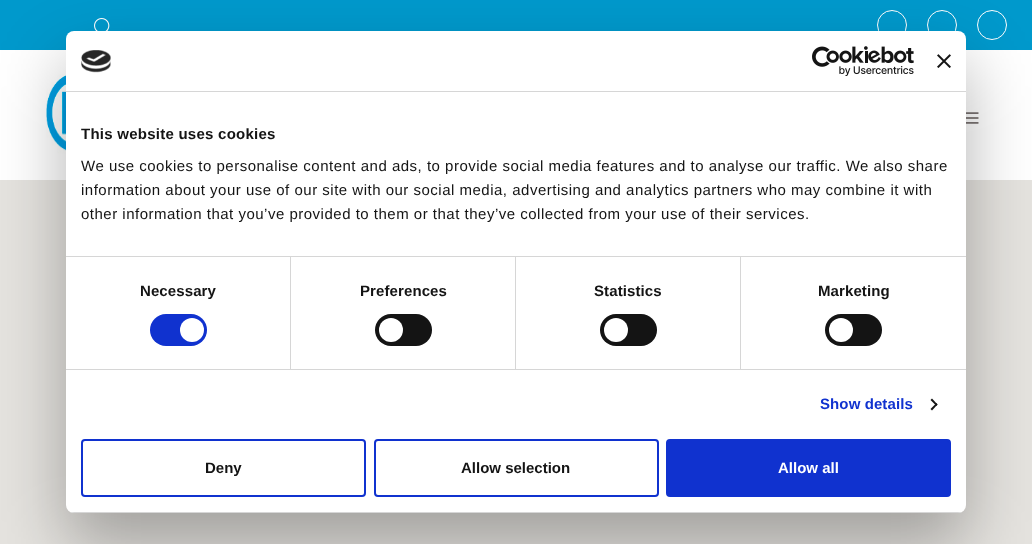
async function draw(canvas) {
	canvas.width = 1032;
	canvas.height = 544;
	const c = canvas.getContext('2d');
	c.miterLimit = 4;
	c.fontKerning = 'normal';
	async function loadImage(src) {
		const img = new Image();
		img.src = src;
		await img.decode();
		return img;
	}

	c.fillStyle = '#fff';
	c.fillRect(0, 0, 1032, 544);
	c.fillStyle = '#09c';
	c.fillRect(0, 0, 1032, 50);
	c.drawImage(await loadImage('img1.png'), 94, 18, 16, 13);
	c.beginPath();
	c.arc(892, 25, 14.5, 0, 2 * Math.PI);
	c.strokeStyle = '#fff';
	c.stroke();
	c.beginPath();
	c.arc(942, 25, 14.5, 0, 2 * Math.PI);
	c.stroke();
	c.beginPath();
	c.arc(992, 25, 14.5, 0, 2 * Math.PI);
	c.stroke();
	c.drawImage(await loadImage('img2.png'), 46, 74, 20, 83);
	c.drawImage(await loadImage('img3.png'), 966, 112, 13, 12);
	c.fillStyle = '#e5e3df';
	c.fillRect(0, 180, 1032, 364);
	c.fillStyle = '#0000004d';
	c.filter = 'blur(34px)';
	c.beginPath();
	c.roundRect(66, 63, 900, 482, 8);
	c.fill();
	c.filter = 'none';
	c.fillStyle = '#fff';
	c.beginPath();
	c.roundRect(66, 31, 900, 482, 8);
	c.fill();
	c.fillStyle = '#d6d6d6';
	c.fillRect(66, 91, 900, 1);
	c.drawImage(await loadImage('img4.png'), 81, 50, 30, 23);
	c.drawImage(await loadImage('img5.png'), 812, 46, 102, 30);
	c.drawImage(await loadImage('img6.png'), 937, 54, 14, 14);
	c.fillRect(66, 256, 900, 1);
	c.letterSpacing = '0.25px';
	c.font = 'bold 15px Liberation Sans';
	c.fillStyle = '#141414';
	c.fillText('This website uses cookies', 81, 139);
	c.letterSpacing = '0.5px';
	c.font = '15px Liberation Sans';
	for (const [text, x, y] of [
		['We use cookies to personalise content and ads, to provide social media features and to analyse our traffic. We also share', 81, 171],
		['information about your use of our site with our social media, advertising and analytics partners who may combine it with', 81, 195],
		['other information that you’ve provided to them or that they’ve collected from your use of their services.', 81, 219],
	]) {
		c.fillText(text, x, y);
	}
	c.fillStyle = '#d6d6d6';
	c.fillRect(66, 369, 900, 1);
	c.fillRect(290, 257, 1, 112);
	c.letterSpacing = '0.1px';
	c.font = 'bold 15px Liberation Sans';
	c.fillStyle = '#141414';
	c.fillText('Necessary', 140, 296);
	c.fillStyle = '#1032cf';
	c.beginPath();
	c.roundRect(150, 314, 57, 32, 16);
	c.fill();
	c.fillStyle = '#fff';
	c.beginPath();
	c.arc(192, 330, 12, 0, 2 * Math.PI);
	c.fill();
	c.fillStyle = '#d6d6d6';
	c.fillRect(515, 257, 1, 112);
	c.fillStyle = '#141414';
	c.fillText('Preferences', 360, 296);
	c.beginPath();
	c.roundRect(375, 314, 57, 32, 16);
	c.fill();
	c.fillStyle = '#fff';
	c.beginPath();
	c.arc(391, 330, 12, 0, 2 * Math.PI);
	c.fill();
	c.fillStyle = '#d6d6d6';
	c.fillRect(740, 257, 1, 112);
	c.fillStyle = '#141414';
	c.fillText('Statistics', 594, 296);
	c.beginPath();
	c.roundRect(600, 314, 57, 32, 16);
	c.fill();
	c.fillStyle = '#fff';
	c.beginPath();
	c.arc(616, 330, 12, 0, 2 * Math.PI);
	c.fill();
	c.fillStyle = '#141414';
	c.fillText('Marketing', 818, 296);
	c.beginPath();
	c.roundRect(825, 314, 57, 32, 16);
	c.fill();
	c.fillStyle = '#fff';
	c.beginPath();
	c.arc(841, 330, 12, 0, 2 * Math.PI);
	c.fill();
	c.fillStyle = '#1032cf';
	c.fillText('Show details', 820, 409);
	c.fillStyle = '#141414';
	c.beginPath();
	c.moveTo(932, 398.5);
	c.lineTo(937.5, 404.5);
	c.lineTo(936.5, 406);
	c.lineTo(930.5, 400);
	c.closePath();
	c.fill();
	c.beginPath();
	c.moveTo(936.5, 403);
	c.lineTo(937.5, 404.5);
	c.lineTo(932, 410.5);
	c.lineTo(930.5, 409);
	c.closePath();
	c.fill();
	c.save();
	c.beginPath();
	c.roundRect(66, 31, 900, 482, 8);
	c.clip();
	c.fillStyle = '#d6d6d6';
	c.fillRect(66, 512, 900, 1);
	c.restore();
	c.beginPath();
	c.roundRect(82, 440, 283, 56, 3);
	c.strokeStyle = '#1032cf';
	c.lineWidth = 2;
	c.stroke();
	c.letterSpacing = '0px';
	c.fillText('Deny', 205, 473);
	c.beginPath();
	c.roundRect(375, 440, 283, 56, 3);
	c.stroke();
	c.fillText('Allow selection', 461, 473);
	c.fillStyle = '#1032cf';
	c.beginPath();
	c.roundRect(667, 440, 283, 56, 3);
	c.fill();
	c.stroke();
	c.fillStyle = '#fff';
	c.fillText('Allow all', 778, 473);
}

draw(document.querySelector('canvas'));
